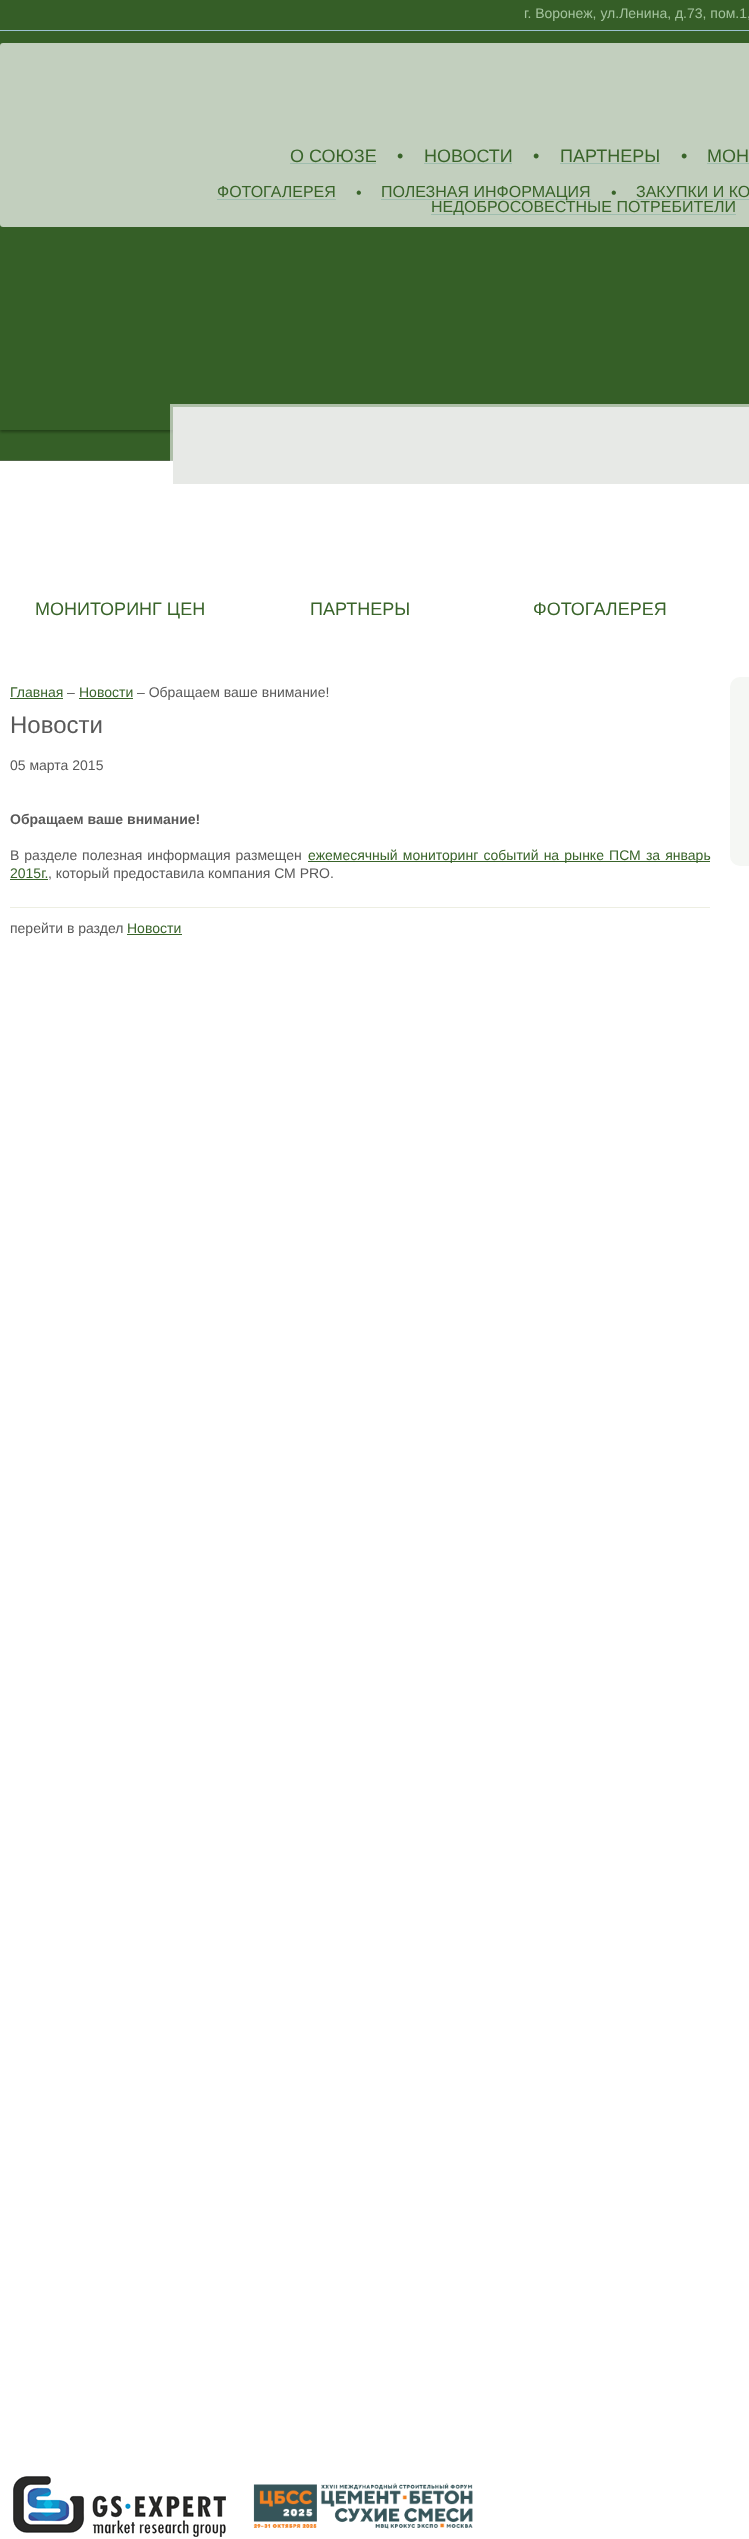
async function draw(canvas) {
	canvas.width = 749;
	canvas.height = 2539;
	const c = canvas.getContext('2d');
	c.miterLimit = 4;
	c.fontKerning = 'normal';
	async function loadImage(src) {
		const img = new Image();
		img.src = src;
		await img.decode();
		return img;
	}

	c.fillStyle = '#fff';
	c.fillRect(0, 0, 749, 2539);
	c.fillStyle = '#355e27';
	c.fillRect(0, 0, 749, 30);
	c.fillStyle = '#a0c7d6';
	c.fillRect(0, 30, 749, 1);
	c.font = '14px Liberation Sans';
	c.fillStyle = '#a4c39e';
	c.fillText('г. Воронеж, ул.Ленина, д.73, пом.1,', 524, 18);
	c.fillStyle = '#355f27';
	c.fillRect(0, 31, 749, 429);
	c.fillStyle = '#52684a';
	c.fillRect(0, 460, 173, 1);
	c.save();
	c.beginPath();
	c.moveTo(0, 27);
	c.lineTo(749, 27);
	c.lineTo(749, 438);
	c.lineTo(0, 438);
	c.closePath();
	c.moveTo(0, 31);
	c.lineTo(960, 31);
	c.lineTo(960, 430);
	c.lineTo(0, 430);
	c.closePath();
	c.clip('evenodd');
	c.fillStyle = '#1d3714cc';
	c.filter = 'blur(1.5px)';
	c.beginPath();
	c.rect(0, 33, 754, 399);
	c.fill();
	c.filter = 'none';
	c.restore();
	c.fillStyle = '#c2cfbe';
	c.beginPath();
	c.roundRect(0, 43, 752, 184, 3);
	c.fill();
	c.fillStyle = '#9fbdae';
	c.fillRect(290, 163, 86, 1);
	c.font = '18px Liberation Sans';
	c.fillStyle = '#39642a';
	c.fillText('О СОЮЗЕ', 290, 162);
	c.fillText('•', 397, 162);
	c.fillStyle = '#9fbdae';
	c.fillRect(424, 163, 88, 1);
	c.fillStyle = '#39642a';
	c.fillText('НОВОСТИ', 424, 162);
	c.fillText('•', 533, 162);
	c.fillStyle = '#9fbdae';
	c.fillRect(560, 163, 100, 1);
	c.fillStyle = '#39642a';
	c.fillText('ПАРТНЕРЫ', 560, 162);
	c.fillText('•', 681, 162);
	c.fillStyle = '#9fbdae';
	c.fillRect(707, 163, 42, 1);
	c.fillStyle = '#39642a';
	c.fillText('МОН', 707, 162);
	c.fillStyle = '#9fbdae';
	c.fillRect(217, 199, 119, 1);
	c.font = '16px Liberation Sans';
	c.fillStyle = '#39642a';
	c.fillText('ФОТОГАЛЕРЕЯ', 217, 197);
	c.fillText('•', 356, 198);
	c.fillStyle = '#9fbdae';
	c.fillRect(381, 199, 210, 1);
	c.fillStyle = '#39642a';
	c.fillText('ПОЛЕЗНАЯ ИНФОРМАЦИЯ', 381, 197);
	c.fillText('•', 611, 198);
	c.fillStyle = '#9fbdae';
	c.fillRect(636, 199, 113, 1);
	c.fillStyle = '#39642a';
	c.fillText('ЗАКУПКИ И КО', 636, 197);
	c.fillStyle = '#9fbdae';
	c.fillRect(431, 214, 305, 1);
	c.save();
	c.beginPath();
	c.rect(10, 51, 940, 164);
	c.clip();
	c.fillStyle = '#39642a';
	c.fillText('НЕДОБРОСОВЕСТНЫЕ ПОТРЕБИТЕЛИ', 431, 212);
	c.restore();
	c.fillStyle = '#ffffff99';
	c.fillRect(170, 404, 579, 57);
	c.fillStyle = '#e7e9e6';
	c.fillRect(173, 407, 576, 77);
	c.font = '18px Liberation Sans';
	c.fillStyle = '#39642a';
	for (const [text, x, y] of [
		['МОНИТОРИНГ ЦЕН', 35, 615],
		['ПАРТНЕРЫ', 310, 615],
		['ФОТОГАЛЕРЕЯ', 533, 615],
	]) {
		c.fillText(text, x, y);
	}
	c.font = '14px Liberation Sans';
	c.fillText('Главная', 10, 697);
	c.fillRect(10, 698, 53, 1);
	c.fillStyle = '#595959';
	c.fillText('–', 67, 697);
	c.fillStyle = '#39642a';
	c.fillText('Новости', 79, 697);
	c.fillRect(79, 698, 54, 1);
	c.fillStyle = '#595959';
	c.fillText('– Обращаем ваше внимание!', 137, 697);
	c.font = '24px Liberation Sans';
	c.fillText('Новости', 10, 733);
	c.font = '14px Liberation Sans';
	c.fillText('05 марта 2015', 10, 770);
	c.font = 'bold 14px Liberation Sans';
	c.fillText('Обращаем ваше внимание!', 10, 824);
	c.wordSpacing = '1px';
	c.font = '14px Liberation Sans';
	c.fillText('В разделе полезная информация размещен', 10, 860);
	c.fillStyle = '#39642a';
	c.fillRect(308, 861, 402, 1);
	c.wordSpacing = '1.25px';
	c.fillText('ежемесячный мониторинг событий на рынке ПСМ за январь', 308, 860);
	c.wordSpacing = '0px';
	c.fillText('2015г.', 10, 878);
	c.fillRect(10, 879, 38, 1);
	c.fillStyle = '#595959';
	c.fillText(', который предоставила компания СМ PRO.', 48, 878);
	c.fillStyle = '#edeee2';
	c.fillRect(10, 907, 700, 1);
	c.fillStyle = '#595959';
	c.fillText('перейти в раздел', 10, 933);
	c.fillStyle = '#39642a';
	c.fillText('Новости', 127, 933);
	c.fillRect(127, 934, 55, 1);
	c.fillStyle = '#f5f7f4';
	c.beginPath();
	c.roundRect(730, 677, 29, 189, 10);
	c.fill();
	c.drawImage(await loadImage('img1.png'), 13, 2476, 213, 61);
	c.drawImage(await loadImage('img2.png'), 253, 2483, 220, 46);
}

draw(document.querySelector('canvas'));
